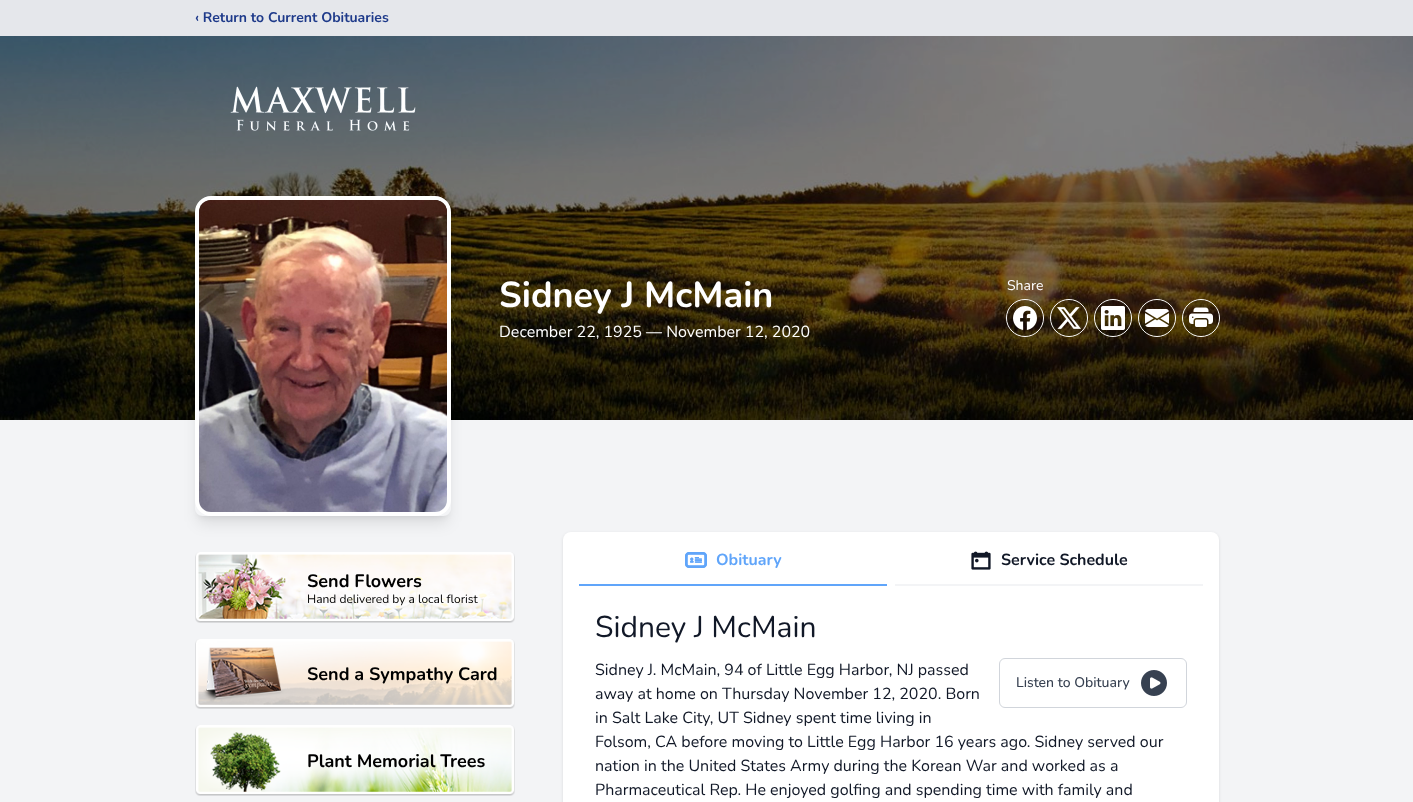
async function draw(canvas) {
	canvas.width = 1413;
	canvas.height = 802;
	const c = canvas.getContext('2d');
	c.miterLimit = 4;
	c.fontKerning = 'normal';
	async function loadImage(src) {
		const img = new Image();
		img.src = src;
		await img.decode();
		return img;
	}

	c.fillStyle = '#f3f4f6';
	c.fillRect(0, 0, 1413, 802);
	c.fillStyle = '#e5e7eb';
	c.fillRect(0, 0, 1413, 36);
	c.font = 'bold 14px Nunito';
	c.fillStyle = '#1e3a8a';
	c.fillText('‹ Return to Current Obituaries', 195, 22);
	c.drawImage(await loadImage('img1.png'), 0, 36, 1413, 384);
	c.drawImage(await loadImage('img2.png'), 230, 86, 186, 45);
	c.save();
	c.beginPath();
	c.moveTo(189, 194);
	c.lineTo(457, 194);
	c.lineTo(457, 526);
	c.lineTo(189, 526);
	c.closePath();
	c.moveTo(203, 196);
	c.lineTo(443, 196);
	c.bezierCurveTo(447.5, 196, 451, 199.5, 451, 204);
	c.lineTo(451, 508);
	c.bezierCurveTo(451, 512.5, 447.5, 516, 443, 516);
	c.lineTo(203, 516);
	c.bezierCurveTo(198.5, 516, 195, 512.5, 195, 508);
	c.lineTo(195, 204);
	c.bezierCurveTo(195, 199.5, 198.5, 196, 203, 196);
	c.closePath();
	c.clip('evenodd');
	c.fillStyle = '#0000001a';
	c.filter = 'blur(3px)';
	c.beginPath();
	c.roundRect(199, 204, 248, 312, 4);
	c.fill();
	c.filter = 'none';
	c.restore();
	c.save();
	c.beginPath();
	c.moveTo(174, 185);
	c.lineTo(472, 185);
	c.lineTo(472, 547);
	c.lineTo(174, 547);
	c.closePath();
	c.moveTo(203, 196);
	c.lineTo(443, 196);
	c.bezierCurveTo(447.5, 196, 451, 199.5, 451, 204);
	c.lineTo(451, 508);
	c.bezierCurveTo(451, 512.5, 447.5, 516, 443, 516);
	c.lineTo(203, 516);
	c.bezierCurveTo(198.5, 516, 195, 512.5, 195, 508);
	c.lineTo(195, 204);
	c.bezierCurveTo(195, 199.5, 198.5, 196, 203, 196);
	c.closePath();
	c.clip('evenodd');
	c.fillStyle = '#0000001a';
	c.filter = 'blur(7.5px)';
	c.beginPath();
	c.roundRect(198, 209, 250, 314, 5);
	c.fill();
	c.filter = 'none';
	c.restore();
	c.beginPath();
	c.roundRect(197, 198, 252, 316, 14);
	c.strokeStyle = '#fff';
	c.lineWidth = 4;
	c.stroke();
	c.drawImage(await loadImage('img3.png'), 199, 200, 248, 312);
	c.font = 'bold 36px Nunito';
	c.fillStyle = '#fff';
	c.fillText('Sidney J McMain', 499, 307);
	c.font = '16px Nunito';
	c.fillText('December 22, 1925 — November 12, 2020', 499, 337);
	c.font = '14px Nunito';
	c.fillText('Share', 1007, 290);
	c.beginPath();
	c.arc(1025, 318, 18.5, 0, 2 * Math.PI);
	c.lineWidth = 1;
	c.stroke();
	c.fillStyle = '#00000033';
	c.beginPath();
	c.arc(1025, 318, 18, 0, 2 * Math.PI);
	c.fill();
	c.drawImage(await loadImage('img4.png'), 1013, 306, 24, 24);
	c.beginPath();
	c.arc(1069, 318, 18.5, 0, 2 * Math.PI);
	c.stroke();
	c.beginPath();
	c.arc(1069, 318, 18, 0, 2 * Math.PI);
	c.fill();
	c.drawImage(await loadImage('img5.png'), 1057, 307, 24, 22);
	c.beginPath();
	c.arc(1113, 318, 18.5, 0, 2 * Math.PI);
	c.stroke();
	c.beginPath();
	c.arc(1113, 318, 18, 0, 2 * Math.PI);
	c.fill();
	c.drawImage(await loadImage('img6.png'), 1101, 306, 24, 24);
	c.beginPath();
	c.arc(1157, 318, 18.5, 0, 2 * Math.PI);
	c.stroke();
	c.beginPath();
	c.arc(1157, 318, 18, 0, 2 * Math.PI);
	c.fill();
	c.drawImage(await loadImage('img7.png'), 1145, 309, 24, 18);
	c.beginPath();
	c.arc(1201, 318, 18.5, 0, 2 * Math.PI);
	c.stroke();
	c.beginPath();
	c.arc(1201, 318, 18, 0, 2 * Math.PI);
	c.fill();
	c.drawImage(await loadImage('img8.png'), 1189, 307, 24, 20);
	c.drawImage(await loadImage('img9.png'), 195, 552, 320, 71);
	c.font = 'bold 18px Nunito';
	c.fillStyle = '#000';
	c.fillText('Send Flowers', 307, 587);
	c.font = '12px Nunito';
	c.fillText('Hand delivered by a local florist', 307, 603);
	c.drawImage(await loadImage('img10.png'), 195, 639, 320, 70);
	c.font = 'bold 18px Nunito';
	c.fillText('Send a Sympathy Card', 307, 680);
	c.drawImage(await loadImage('img11.png'), 195, 725, 320, 71);
	c.fillText('Plant Memorial Trees', 307, 767);
	c.fillStyle = '#0000001a';
	c.filter = 'blur(1.5px)';
	c.beginPath();
	c.roundRect(563, 533, 656, 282, 8);
	c.fill();
	c.filter = 'none';
	c.fillStyle = '#fff';
	c.beginPath();
	c.roundRect(563, 532, 656, 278, 8);
	c.fill();
	c.fillStyle = '#60a5fa';
	c.fillRect(579, 584, 308, 2);
	c.drawImage(await loadImage('img12.png'), 685, 552, 22, 16);
	c.font = 'bold 16px Nunito';
	c.fillText('Obituary', 716, 565);
	c.fillStyle = '#f3f4f6';
	c.fillRect(895, 584, 308, 2);
	c.drawImage(await loadImage('img13.png'), 971, 551, 20, 19);
	c.fillStyle = '#111827';
	c.fillText('Service Schedule', 1001, 565);
	c.font = '30px Nunito';
	c.fillText('Sidney J McMain', 595, 637);
	c.font = '16px Nunito';
	for (const [text, x, y] of [
		['Sidney J. McMain, 94 of Little Egg Harbor, NJ passed', 595, 675],
		['away at home on Thursday November 12, 2020. Born', 595, 699],
		['in Salt Lake City, UT Sidney spent time living in', 595, 723],
		['Folsom, CA before moving to Little Egg Harbor 16 years ago. Sidney served our', 595, 747],
		['nation in the United States Army during the Korean War and worked as a', 595, 771],
		['Pharmaceutical Rep. He enjoyed golfing and spending time with family and', 595, 795],
	]) {
		c.fillText(text, x, y);
	}
	c.beginPath();
	c.roundRect(999.5, 658.5, 187, 49, 5.5);
	c.strokeStyle = '#d1d5db';
	c.stroke();
	c.font = '500 14px Nunito';
	c.fillStyle = '#374151';
	c.fillText('Listen to Obituary', 1016, 687);
	c.drawImage(await loadImage('img14.png'), 1141, 670, 26, 26);
}

draw(document.querySelector('canvas'));
